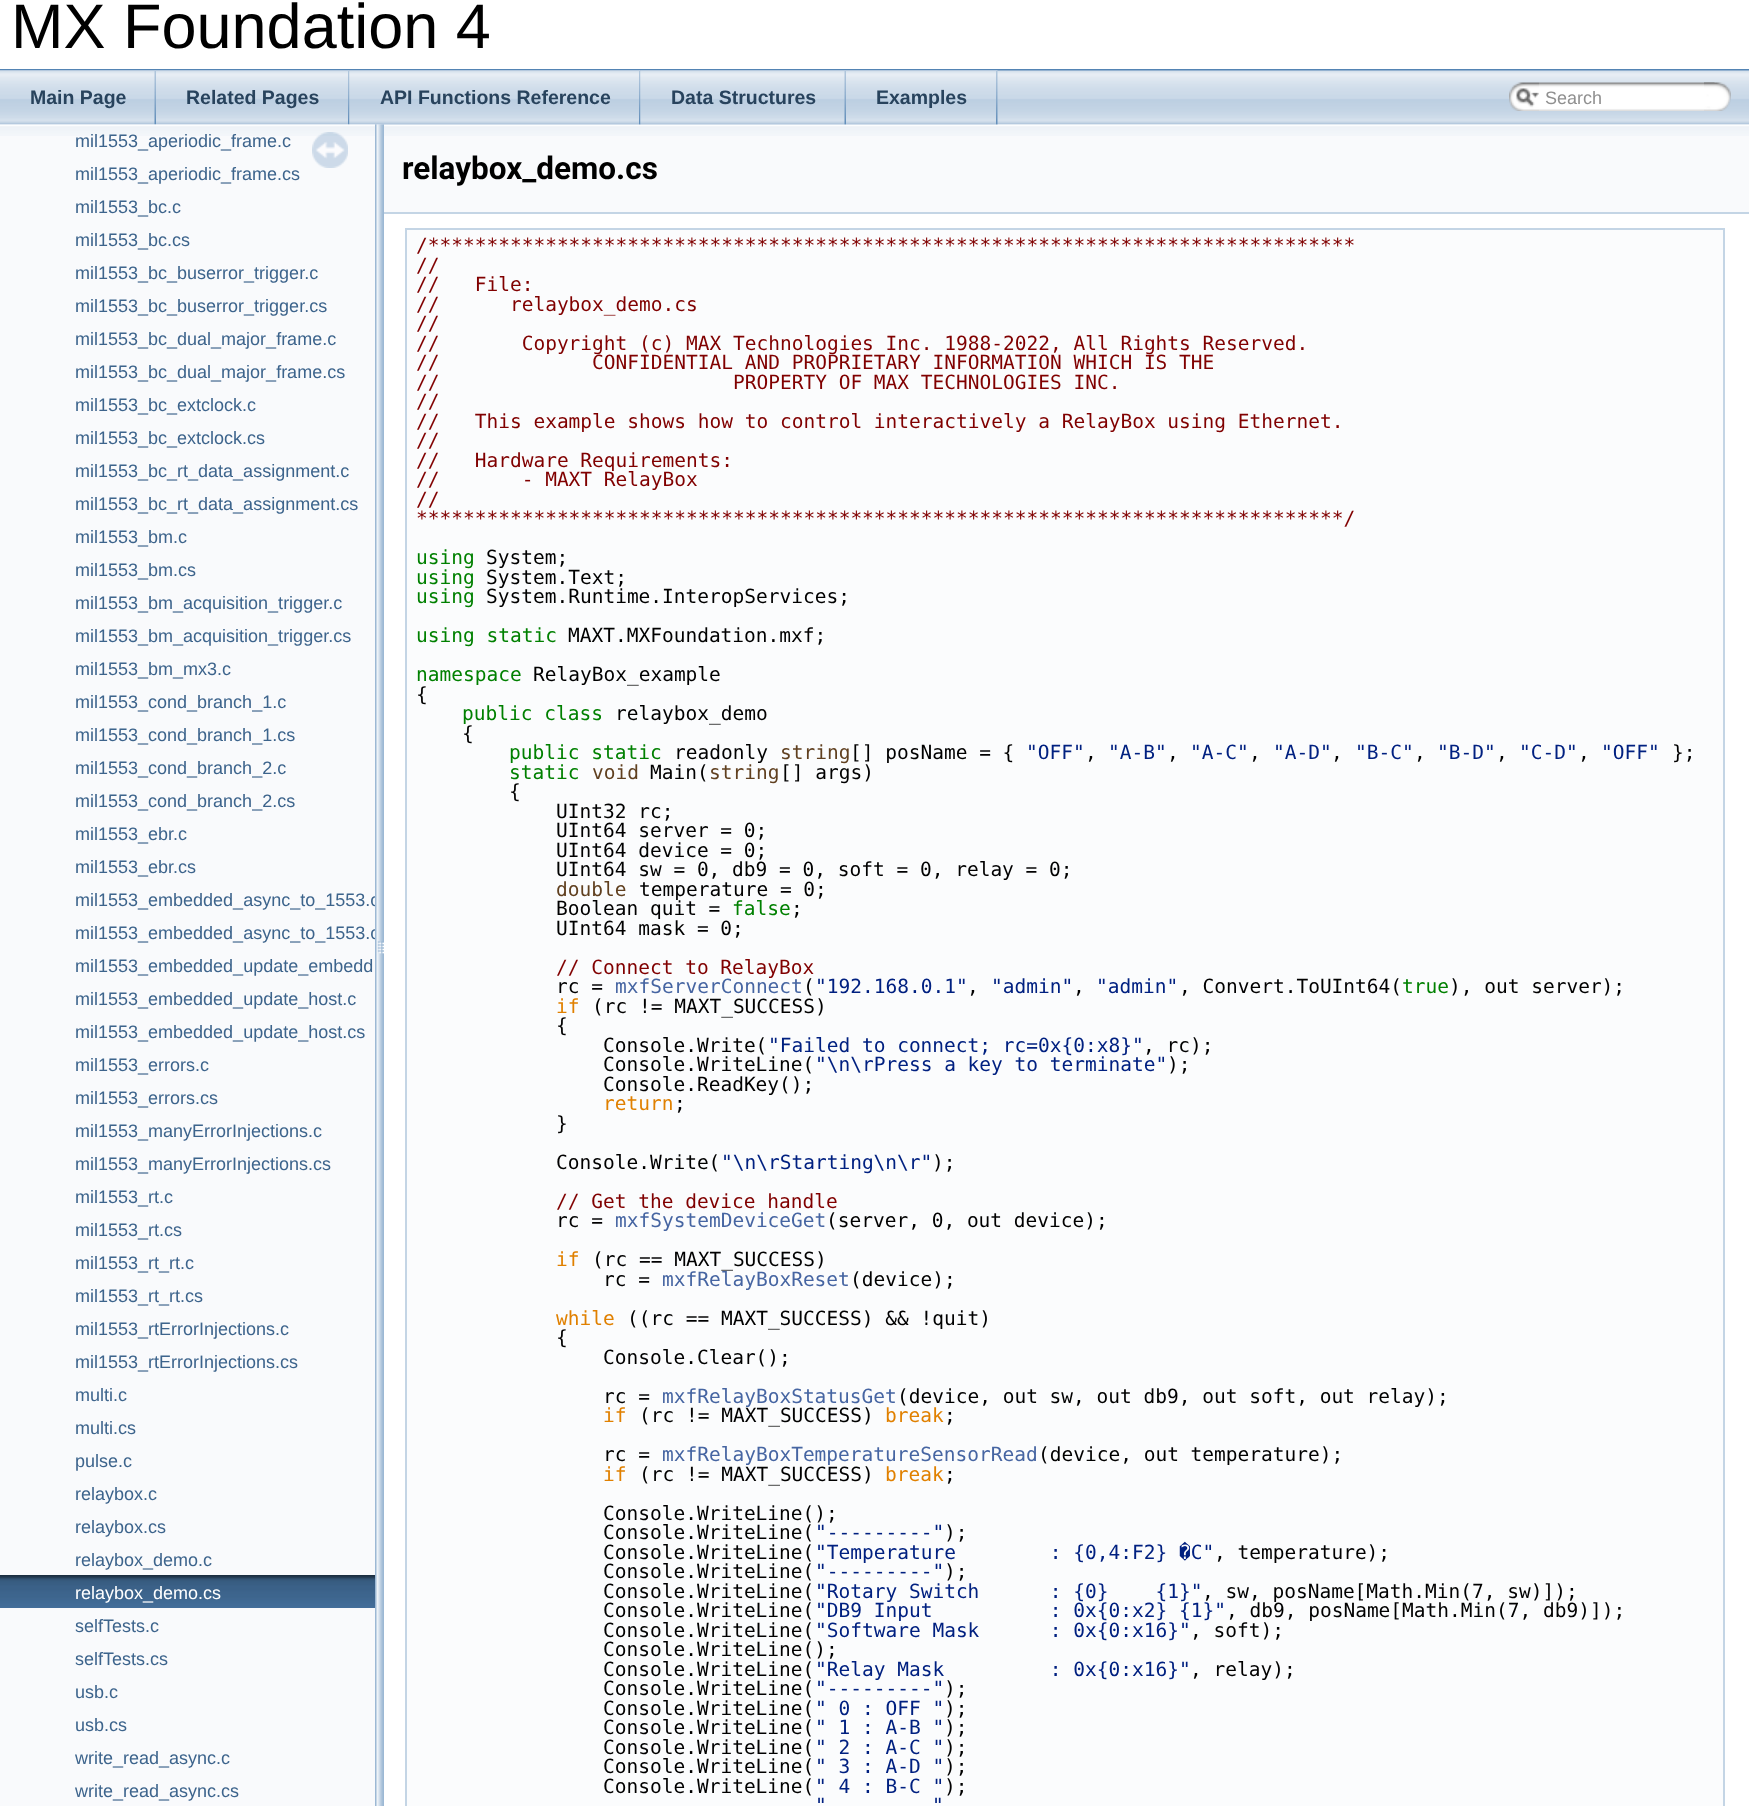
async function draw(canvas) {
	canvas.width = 1749;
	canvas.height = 1820;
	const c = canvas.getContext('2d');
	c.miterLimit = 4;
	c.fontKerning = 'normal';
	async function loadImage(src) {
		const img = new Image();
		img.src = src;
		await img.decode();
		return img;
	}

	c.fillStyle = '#fff';
	c.fillRect(0, 0, 1749, 1820);
	c.fillStyle = '#5384b4';
	c.fillRect(0, 69, 1749, 2);
	c.font = '63px Liberation Sans';
	c.fillStyle = '#000';
	c.fillText('MX Foundation 4', 11, 48);
	c.drawImage(await loadImage('img1.png'), 0, 70, 1749, 55);
	c.drawImage(await loadImage('img2.png'), 0, 70, 156, 55);
	c.drawImage(await loadImage('img3.png'), 154, 71, 2, 54);
	c.font = 'bold 19.5px Liberation Sans';
	c.fillStyle = '#28435d';
	c.fillText('Main Page', 30, 104);
	c.drawImage(await loadImage('img4.png'), 156, 70, 194, 55);
	c.drawImage(await loadImage('img5.png'), 348, 71, 2, 54);
	c.fillText('Related Pages', 186, 104);
	c.drawImage(await loadImage('img6.png'), 349, 70, 292, 55);
	c.drawImage(await loadImage('img5.png'), 639, 71, 2, 54);
	c.fillText('API Functions Reference', 380, 104);
	c.drawImage(await loadImage('img7.png'), 640, 70, 206, 55);
	c.drawImage(await loadImage('img3.png'), 844, 71, 2, 54);
	c.fillText('Data Structures', 671, 104);
	c.drawImage(await loadImage('img8.png'), 846, 70, 152, 55);
	c.drawImage(await loadImage('img5.png'), 996, 71, 2, 54);
	c.fillText('Examples', 876, 104);
	c.drawImage(await loadImage('img9.png'), 1509, 82, 30, 29);
	c.drawImage(await loadImage('img10.png'), 1516, 88, 23, 19);
	c.drawImage(await loadImage('img11.png'), 1539, 82, 176, 29);
	c.font = '18px Liberation Sans';
	c.fillStyle = '#909090';
	c.fillText('Search', 1545, 104);
	c.drawImage(await loadImage('img12.png'), 1704, 82, 27, 29);
	c.fillStyle = '#f9fafc';
	c.fillRect(0, 136, 375, 1670);
	c.drawImage(await loadImage('img13.png'), 0, 124, 375, 12);
	c.drawImage(await loadImage('img14.png'), 312, 132, 36, 36);
	c.fillStyle = '#3d648c';
	for (const [text, x, y] of [
		['mil1553_aperiodic_frame.c', 75, 147],
		['mil1553_aperiodic_frame.cs', 75, 180],
		['mil1553_bc.c', 75, 213],
		['mil1553_bc.cs', 75, 246],
		['mil1553_bc_buserror_trigger.c', 75, 279],
		['mil1553_bc_buserror_trigger.cs', 75, 312],
		['mil1553_bc_dual_major_frame.c', 75, 345],
		['mil1553_bc_dual_major_frame.cs', 75, 378],
		['mil1553_bc_extclock.c', 75, 411],
		['mil1553_bc_extclock.cs', 75, 444],
		['mil1553_bc_rt_data_assignment.c', 75, 477],
		['mil1553_bc_rt_data_assignment.cs', 75, 510],
		['mil1553_bm.c', 75, 543],
		['mil1553_bm.cs', 75, 576],
		['mil1553_bm_acquisition_trigger.c', 75, 609],
		['mil1553_bm_acquisition_trigger.cs', 75, 642],
		['mil1553_bm_mx3.c', 75, 675],
		['mil1553_cond_branch_1.c', 75, 708],
		['mil1553_cond_branch_1.cs', 75, 741],
		['mil1553_cond_branch_2.c', 75, 774],
		['mil1553_cond_branch_2.cs', 75, 807],
		['mil1553_ebr.c', 75, 840],
		['mil1553_ebr.cs', 75, 873],
		['mil1553_embedded_async_to_1553.c', 75, 906],
		['mil1553_embedded_async_to_1553.c', 75, 939],
		['mil1553_embedded_update_embedd', 75, 972],
		['mil1553_embedded_update_host.c', 75, 1005],
		['mil1553_embedded_update_host.cs', 75, 1038],
		['mil1553_errors.c', 75, 1071],
		['mil1553_errors.cs', 75, 1104],
		['mil1553_manyErrorInjections.c', 75, 1137],
		['mil1553_manyErrorInjections.cs', 75, 1170],
		['mil1553_rt.c', 75, 1203],
		['mil1553_rt.cs', 75, 1236],
		['mil1553_rt_rt.c', 75, 1269],
		['mil1553_rt_rt.cs', 75, 1302],
		['mil1553_rtErrorInjections.c', 75, 1335],
		['mil1553_rtErrorInjections.cs', 75, 1368],
		['multi.c', 75, 1401],
		['multi.cs', 75, 1434],
		['pulse.c', 75, 1467],
		['relaybox.c', 75, 1500],
		['relaybox.cs', 75, 1533],
		['relaybox_demo.c', 75, 1566],
	]) {
		c.fillText(text, x, y);
	}
	c.drawImage(await loadImage('img15.png'), 0, 1575, 375, 33);
	c.fillStyle = '#fff';
	c.fillText('relaybox_demo.cs', 75, 1599);
	c.fillStyle = '#3d648c';
	for (const [text, x, y] of [
		['selfTests.c', 75, 1632],
		['selfTests.cs', 75, 1665],
		['usb.c', 75, 1698],
		['usb.cs', 75, 1731],
		['write_read_async.c', 75, 1764],
		['write_read_async.cs', 75, 1797],
	]) {
		c.fillText(text, x, y);
	}
	c.drawImage(await loadImage('img16.png'), 375, 124, 9, 1682);
	c.fillStyle = '#f9fafc';
	c.fillRect(384, 136, 1365, 76);
	c.drawImage(await loadImage('img17.png'), 384, 124, 1365, 12);
	c.fillStyle = '#c4d5e5';
	c.fillRect(384, 212, 1365, 2);
	c.font = 'bold 31.5px Roboto';
	c.fillStyle = '#000';
	c.fillText('relaybox_demo.cs', 402, 179);
	c.fillStyle = '#fbfcfd';
	c.fillRect(407, 230, 1316, 1576);
	c.save();
	c.beginPath();
	c.rect(384, 125, 1365, 1681);
	c.clip();
	c.strokeStyle = '#c4d5e5';
	c.lineWidth = 2;
	c.strokeRect(406, 229, 1318, 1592);
	c.restore();
	c.font = '19.5px DejaVu Sans Mono';
	c.fillStyle = '#800000';
	for (const [text, x, y] of [
		['/*******************************************************************************', 416, 252],
		['//', 416, 272],
		['//   File:', 416, 291],
		['//      relaybox_demo.cs', 416, 311],
		['//', 416, 330],
		['//       Copyright (c) MAX Technologies Inc. 1988-2022, All Rights Reserved.', 416, 350],
		['//             CONFIDENTIAL AND PROPRIETARY INFORMATION WHICH IS THE', 416, 369],
		['//                         PROPERTY OF MAX TECHNOLOGIES INC.', 416, 389],
		['//', 416, 408],
		['//   This example shows how to control interactively a RelayBox using Ethernet.', 416, 428],
		['//', 416, 447],
		['//   Hardware Requirements:', 416, 467],
		['//       - MAXT RelayBox', 416, 486],
		['//', 416, 506],
		['*******************************************************************************/', 416, 525],
	]) {
		c.fillText(text, x, y);
	}
	c.fillStyle = '#008000';
	c.fillText('using', 416, 564);
	c.fillStyle = '#000';
	c.fillText('System;', 486, 564);
	c.fillStyle = '#008000';
	c.fillText('using', 416, 584);
	c.fillStyle = '#000';
	c.fillText('System.Text;', 486, 584);
	c.fillStyle = '#008000';
	c.fillText('using', 416, 603);
	c.fillStyle = '#000';
	c.fillText('System.Runtime.InteropServices;', 486, 603);
	c.fillStyle = '#008000';
	c.fillText('using static', 416, 642);
	c.fillStyle = '#000';
	c.fillText('MAXT.MXFoundation.mxf;', 568, 642);
	c.fillStyle = '#008000';
	c.fillText('namespace', 416, 681);
	c.fillStyle = '#000';
	c.fillText('RelayBox_example', 533, 681);
	c.fillText('{', 416, 701);
	c.fillStyle = '#008000';
	c.fillText('public class', 462, 720);
	c.fillStyle = '#000';
	c.fillText('relaybox_demo', 615, 720);
	c.fillText('{', 462, 740);
	c.fillStyle = '#008000';
	c.fillText('public static', 509, 759);
	c.fillStyle = '#000';
	c.fillText('readonly', 674, 759);
	c.fillStyle = '#604020';
	c.fillText('string', 780, 759);
	c.fillStyle = '#000';
	c.fillText('[] posName = {', 850, 759);
	c.fillStyle = '#002080';
	c.fillText('"OFF"', 1026, 759);
	c.fillStyle = '#000';
	c.fillText(',', 1085, 759);
	c.fillStyle = '#002080';
	c.fillText('"A-B"', 1108, 759);
	c.fillStyle = '#000';
	c.fillText(',', 1167, 759);
	c.fillStyle = '#002080';
	c.fillText('"A-C"', 1190, 759);
	c.fillStyle = '#000';
	c.fillText(',', 1249, 759);
	c.fillStyle = '#002080';
	c.fillText('"A-D"', 1273, 759);
	c.fillStyle = '#000';
	c.fillText(',', 1331, 759);
	c.fillStyle = '#002080';
	c.fillText('"B-C"', 1355, 759);
	c.fillStyle = '#000';
	c.fillText(',', 1414, 759);
	c.fillStyle = '#002080';
	c.fillText('"B-D"', 1437, 759);
	c.fillStyle = '#000';
	c.fillText(',', 1496, 759);
	c.fillStyle = '#002080';
	c.fillText('"C-D"', 1519, 759);
	c.fillStyle = '#000';
	c.fillText(',', 1578, 759);
	c.fillStyle = '#002080';
	c.fillText('"OFF"', 1601, 759);
	c.fillStyle = '#000';
	c.fillText('};', 1672, 759);
	c.fillStyle = '#008000';
	c.fillText('static', 509, 779);
	c.fillStyle = '#604020';
	c.fillText('void', 592, 779);
	c.fillStyle = '#000';
	c.fillText('Main(', 650, 779);
	c.fillStyle = '#604020';
	c.fillText('string', 709, 779);
	c.fillStyle = '#000';
	for (const [text, x, y] of [
		['[] args)', 780, 779],
		['{', 509, 798],
		['UInt32 rc;', 556, 818],
		['UInt64 server = 0;', 556, 837],
		['UInt64 device = 0;', 556, 857],
		['UInt64 sw = 0, db9 = 0, soft = 0, relay = 0;', 556, 876],
	]) {
		c.fillText(text, x, y);
	}
	c.fillStyle = '#604020';
	c.fillText('double', 556, 896);
	c.fillStyle = '#000';
	c.fillText('temperature = 0;', 639, 896);
	c.fillText('Boolean quit =', 556, 915);
	c.fillStyle = '#008000';
	c.fillText('false', 732, 915);
	c.fillStyle = '#000';
	c.fillText(';', 791, 915);
	c.fillText('UInt64 mask = 0;', 556, 935);
	c.fillStyle = '#800000';
	c.fillText('// Connect to RelayBox', 556, 974);
	c.fillStyle = '#000';
	c.fillText('rc =', 556, 993);
	c.fillStyle = '#4665a2';
	c.fillText('mxfServerConnect', 615, 993);
	c.fillStyle = '#000';
	c.fillText('(', 803, 993);
	c.fillStyle = '#002080';
	c.fillText('"192.168.0.1"', 815, 993);
	c.fillStyle = '#000';
	c.fillText(',', 967, 993);
	c.fillStyle = '#002080';
	c.fillText('"admin"', 991, 993);
	c.fillStyle = '#000';
	c.fillText(',', 1073, 993);
	c.fillStyle = '#002080';
	c.fillText('"admin"', 1096, 993);
	c.fillStyle = '#000';
	c.fillText(', Convert.ToUInt64(', 1179, 993);
	c.fillStyle = '#008000';
	c.fillText('true', 1402, 993);
	c.fillStyle = '#000';
	c.fillText('), out server);', 1449, 993);
	c.fillStyle = '#e08000';
	c.fillText('if', 556, 1013);
	c.fillStyle = '#000';
	for (const [text, x, y] of [
		['(rc != MAXT_SUCCESS)', 592, 1013],
		['{', 556, 1032],
		['Console.Write(', 603, 1052],
	]) {
		c.fillText(text, x, y);
	}
	c.fillStyle = '#002080';
	c.fillText('"Failed to connect; rc=0x{0:x8}"', 768, 1052);
	c.fillStyle = '#000';
	c.fillText(', rc);', 1143, 1052);
	c.fillText('Console.WriteLine(', 603, 1071);
	c.fillStyle = '#002080';
	c.fillText('"\\n\\rPress a key to terminate"', 815, 1071);
	c.fillStyle = '#000';
	c.fillText(');', 1167, 1071);
	c.fillText('Console.ReadKey();', 603, 1091);
	c.fillStyle = '#e08000';
	c.fillText('return', 603, 1110);
	c.fillStyle = '#000';
	for (const [text, x, y] of [
		[';', 674, 1110],
		['}', 556, 1130],
		['Console.Write(', 556, 1169],
	]) {
		c.fillText(text, x, y);
	}
	c.fillStyle = '#002080';
	c.fillText('"\\n\\rStarting\\n\\r"', 721, 1169);
	c.fillStyle = '#000';
	c.fillText(');', 932, 1169);
	c.fillStyle = '#800000';
	c.fillText('// Get the device handle', 556, 1208);
	c.fillStyle = '#000';
	c.fillText('rc =', 556, 1227);
	c.fillStyle = '#4665a2';
	c.fillText('mxfSystemDeviceGet', 615, 1227);
	c.fillStyle = '#000';
	c.fillText('(server, 0, out device);', 826, 1227);
	c.fillStyle = '#e08000';
	c.fillText('if', 556, 1266);
	c.fillStyle = '#000';
	c.fillText('(rc == MAXT_SUCCESS)', 592, 1266);
	c.fillText('rc =', 603, 1286);
	c.fillStyle = '#4665a2';
	c.fillText('mxfRelayBoxReset', 662, 1286);
	c.fillStyle = '#000';
	c.fillText('(device);', 850, 1286);
	c.fillStyle = '#e08000';
	c.fillText('while', 556, 1325);
	c.fillStyle = '#000';
	for (const [text, x, y] of [
		['((rc == MAXT_SUCCESS) && !quit)', 627, 1325],
		['{', 556, 1344],
		['Console.Clear();', 603, 1364],
		['rc =', 603, 1403],
	]) {
		c.fillText(text, x, y);
	}
	c.fillStyle = '#4665a2';
	c.fillText('mxfRelayBoxStatusGet', 662, 1403);
	c.fillStyle = '#000';
	c.fillText('(device, out sw, out db9, out soft, out relay);', 897, 1403);
	c.fillStyle = '#e08000';
	c.fillText('if', 603, 1422);
	c.fillStyle = '#000';
	c.fillText('(rc != MAXT_SUCCESS)', 639, 1422);
	c.fillStyle = '#e08000';
	c.fillText('break', 885, 1422);
	c.fillStyle = '#000';
	c.fillText(';', 944, 1422);
	c.fillText('rc =', 603, 1461);
	c.fillStyle = '#4665a2';
	c.fillText('mxfRelayBoxTemperatureSensorRead', 662, 1461);
	c.fillStyle = '#000';
	c.fillText('(device, out temperature);', 1038, 1461);
	c.fillStyle = '#e08000';
	c.fillText('if', 603, 1481);
	c.fillStyle = '#000';
	c.fillText('(rc != MAXT_SUCCESS)', 639, 1481);
	c.fillStyle = '#e08000';
	c.fillText('break', 885, 1481);
	c.fillStyle = '#000';
	for (const [text, x, y] of [
		[';', 944, 1481],
		['Console.WriteLine();', 603, 1520],
		['Console.WriteLine(', 603, 1539],
	]) {
		c.fillText(text, x, y);
	}
	c.fillStyle = '#002080';
	c.fillText('"---------"', 815, 1539);
	c.fillStyle = '#000';
	c.fillText(');', 944, 1539);
	c.fillText('Console.WriteLine(', 603, 1559);
	c.fillStyle = '#002080';
	c.fillText('"Temperature        : {0,4:F2} �C"', 815, 1559);
	c.fillStyle = '#000';
	c.fillText(', temperature);', 1214, 1559);
	c.fillText('Console.WriteLine(', 603, 1578);
	c.fillStyle = '#002080';
	c.fillText('"---------"', 815, 1578);
	c.fillStyle = '#000';
	c.fillText(');', 944, 1578);
	c.fillText('Console.WriteLine(', 603, 1598);
	c.fillStyle = '#002080';
	c.fillText('"Rotary Switch      : {0}    {1}"', 815, 1598);
	c.fillStyle = '#000';
	c.fillText(', sw, posName[Math.Min(7, sw)]);', 1202, 1598);
	c.fillText('Console.WriteLine(', 603, 1617);
	c.fillStyle = '#002080';
	c.fillText('"DB9 Input          : 0x{0:x2} {1}"', 815, 1617);
	c.fillStyle = '#000';
	c.fillText(', db9, posName[Math.Min(7, db9)]);', 1226, 1617);
	c.fillText('Console.WriteLine(', 603, 1637);
	c.fillStyle = '#002080';
	c.fillText('"Software Mask      : 0x{0:x16}"', 815, 1637);
	c.fillStyle = '#000';
	for (const [text, x, y] of [
		[', soft);', 1190, 1637],
		['Console.WriteLine();', 603, 1656],
		['Console.WriteLine(', 603, 1676],
	]) {
		c.fillText(text, x, y);
	}
	c.fillStyle = '#002080';
	c.fillText('"Relay Mask         : 0x{0:x16}"', 815, 1676);
	c.fillStyle = '#000';
	c.fillText(', relay);', 1190, 1676);
	c.fillText('Console.WriteLine(', 603, 1695);
	c.fillStyle = '#002080';
	c.fillText('"---------"', 815, 1695);
	c.fillStyle = '#000';
	c.fillText(');', 944, 1695);
	c.fillText('Console.WriteLine(', 603, 1715);
	c.fillStyle = '#002080';
	c.fillText('" 0 : OFF "', 815, 1715);
	c.fillStyle = '#000';
	c.fillText(');', 944, 1715);
	c.fillText('Console.WriteLine(', 603, 1734);
	c.fillStyle = '#002080';
	c.fillText('" 1 : A-B "', 815, 1734);
	c.fillStyle = '#000';
	c.fillText(');', 944, 1734);
	c.fillText('Console.WriteLine(', 603, 1754);
	c.fillStyle = '#002080';
	c.fillText('" 2 : A-C "', 815, 1754);
	c.fillStyle = '#000';
	c.fillText(');', 944, 1754);
	c.fillText('Console.WriteLine(', 603, 1773);
	c.fillStyle = '#002080';
	c.fillText('" 3 : A-D "', 815, 1773);
	c.fillStyle = '#000';
	c.fillText(');', 944, 1773);
	c.fillText('Console.WriteLine(', 603, 1793);
	c.fillStyle = '#002080';
	c.fillText('" 4 : B-C "', 815, 1793);
	c.fillStyle = '#000';
	c.fillText(');', 944, 1793);
	c.fillStyle = '#002080';
	c.fillText('"', 815, 1812);
	c.fillText('"', 932, 1812);
}

draw(document.querySelector('canvas'));
